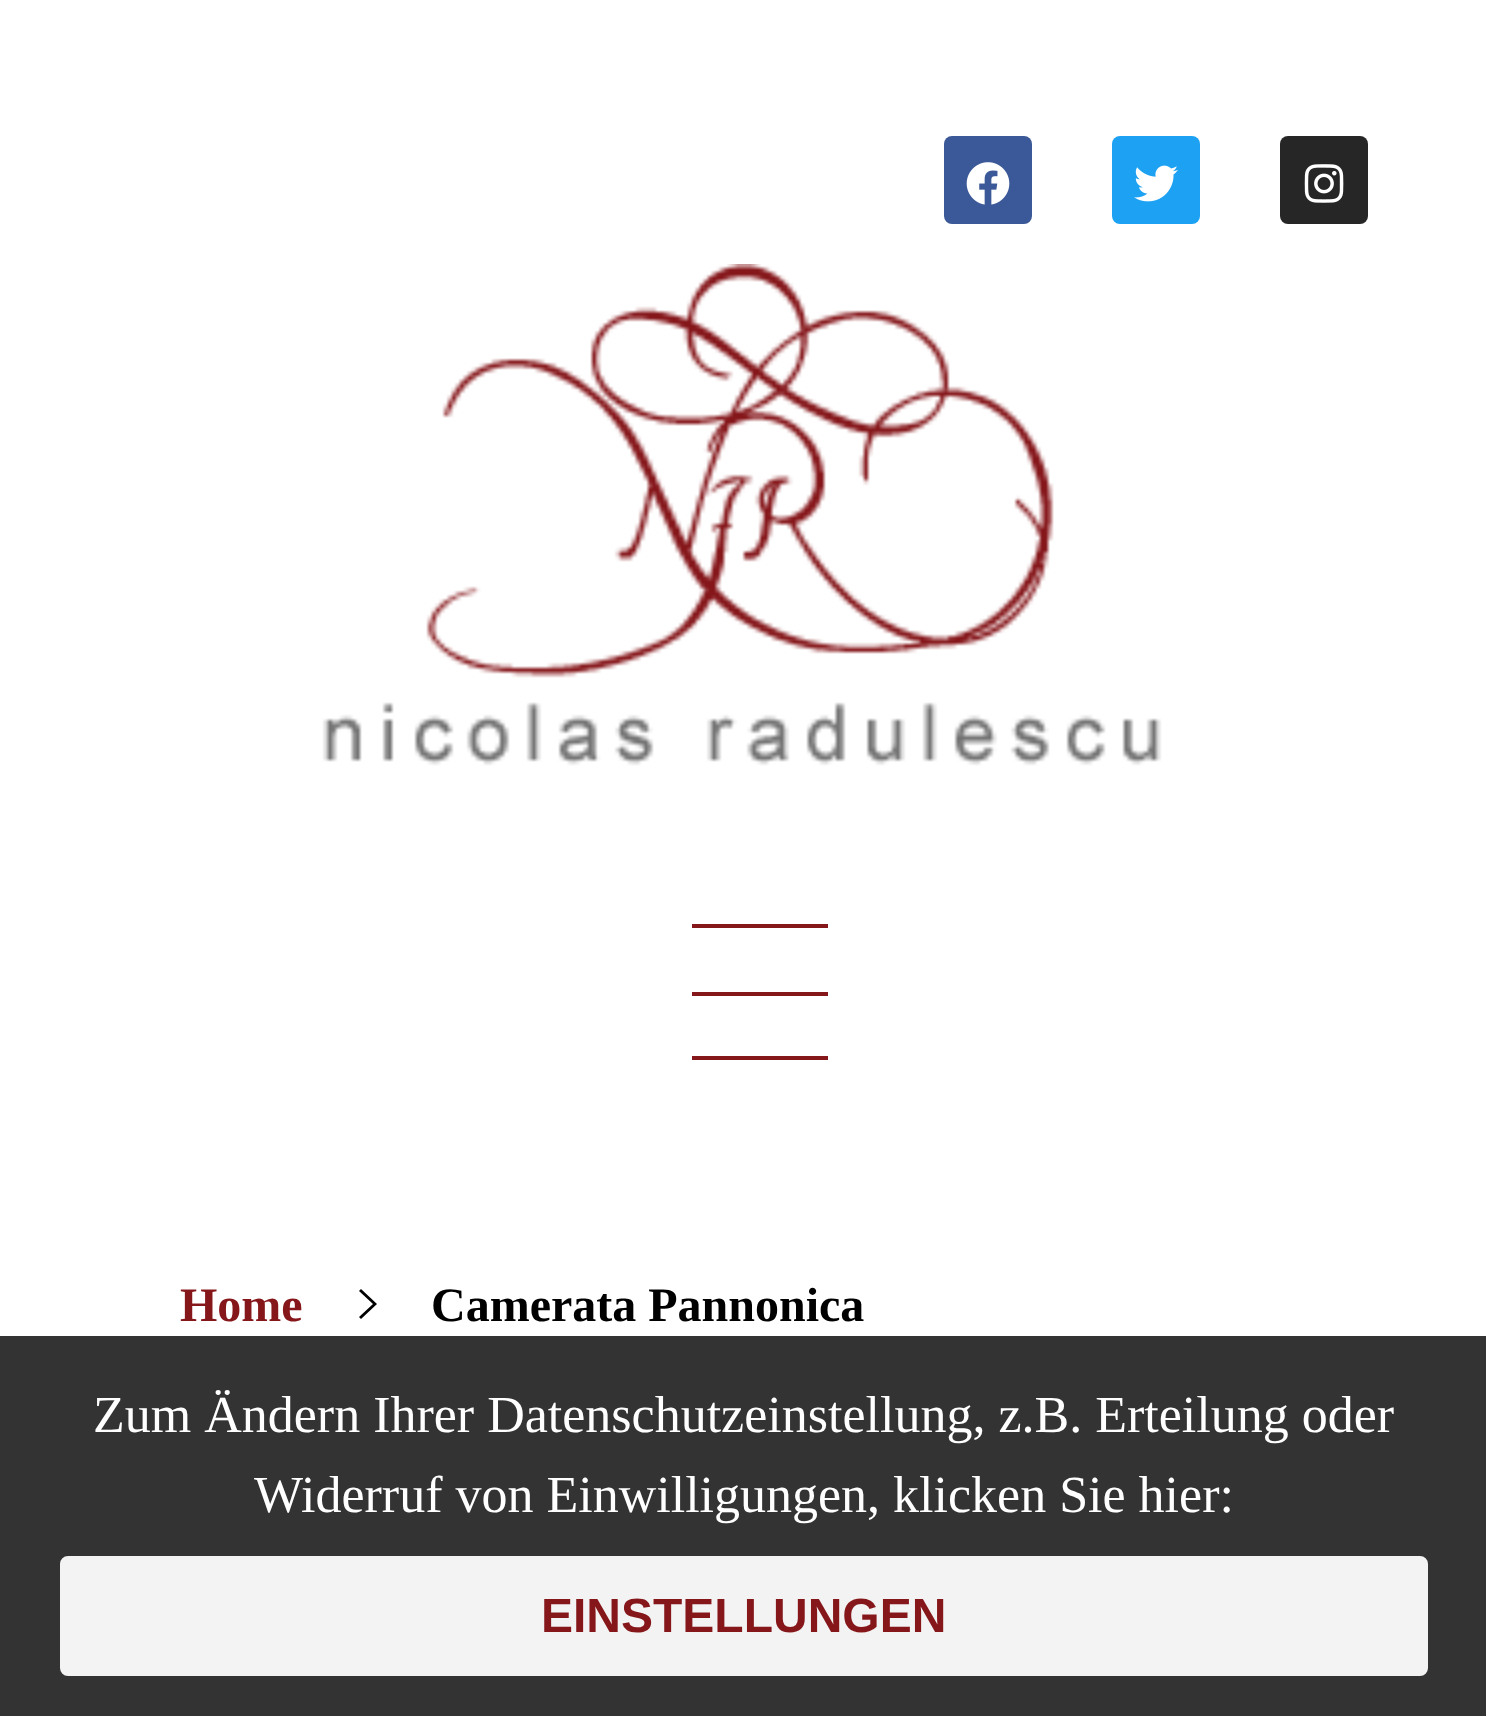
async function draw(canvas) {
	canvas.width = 1486;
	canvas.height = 1716;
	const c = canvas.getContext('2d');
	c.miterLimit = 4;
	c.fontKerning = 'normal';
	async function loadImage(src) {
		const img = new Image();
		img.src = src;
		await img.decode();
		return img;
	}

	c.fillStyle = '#fff';
	c.fillRect(0, 0, 1486, 1716);
	c.fillStyle = '#3b5998';
	c.beginPath();
	c.roundRect(944, 136, 88, 88, 8);
	c.fill();
	c.drawImage(await loadImage('img1.png'), 966, 162, 44, 43);
	c.fillStyle = '#1da1f2';
	c.beginPath();
	c.roundRect(1112, 136, 88, 88, 8);
	c.fill();
	c.drawImage(await loadImage('img2.png'), 1134, 165, 44, 37);
	c.fillStyle = '#262626';
	c.beginPath();
	c.roundRect(1280, 136, 88, 88, 8);
	c.fill();
	c.drawImage(await loadImage('img3.png'), 1304, 164, 40, 39);
	c.drawImage(await loadImage('img4.png'), 322, 264, 840, 502);
	for (const [x, y, w, h, color] of [
		[692, 924, 136, 4, '#85161a'],
		[692, 992, 136, 4, '#85161a'],
		[692, 1056, 136, 4, '#85161a'],
	]) {
		c.fillStyle = color;
		c.fillRect(x, y, w, h);
	}
	c.font = 'bold 48px Liberation Serif';
	c.fillText('Home', 180, 1321);
	c.fillStyle = '#000';
	c.beginPath();
	c.moveTo(359, 1291);
	c.lineTo(373, 1304);
	c.lineTo(359, 1317);
	c.lineTo(361, 1319);
	c.lineTo(377, 1304);
	c.lineTo(361, 1289);
	c.closePath();
	c.fill();
	c.fillText('Camerata Pannonica', 431, 1321);
	c.fillStyle = '#333';
	c.fillRect(0, 1336, 1486, 380);
	c.font = '52px Liberation Serif';
	c.fillStyle = '#fff';
	c.fillText('Zum Ändern Ihrer Datenschutzeinstellung, z.B. Erteilung oder', 93, 1432);
	c.fillText('Widerruf von Einwilligungen, klicken Sie hier:', 254, 1512);
	c.fillStyle = '#f3f3f3';
	c.beginPath();
	c.roundRect(62, 1558, 1364, 116, 6);
	c.fill();
	c.strokeStyle = '#f3f3f3';
	c.lineWidth = 4;
	c.stroke();
	c.font = 'bold 48px Liberation Sans';
	c.fillStyle = '#85161a';
	c.fillText('EINSTELLUNGEN', 541, 1632);
}

draw(document.querySelector('canvas'));
